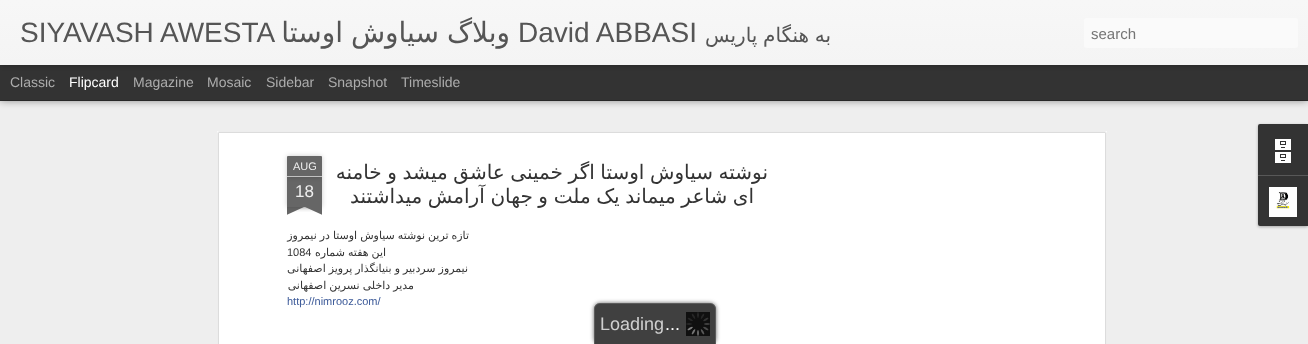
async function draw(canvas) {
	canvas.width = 1308;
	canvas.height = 344;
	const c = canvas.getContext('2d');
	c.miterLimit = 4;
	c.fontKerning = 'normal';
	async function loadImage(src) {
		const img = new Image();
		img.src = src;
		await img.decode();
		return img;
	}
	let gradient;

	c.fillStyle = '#333';
	c.fillRect(0, 0, 1308, 344);
	c.fillStyle = '#eee';
	c.fillRect(0, 101, 1308, 243);
	c.fillStyle = '#00000080';
	c.filter = 'blur(4px)';
	c.beginPath();
	c.rect(0, 65, 1308, 35);
	c.fill();
	c.filter = 'none';
	c.fillStyle = '#333';
	c.fillRect(0, 65, 1308, 35);
	c.fillStyle = '#0000004d';
	c.filter = 'blur(2.5px)';
	c.beginPath();
	c.rect(0, 0, 1308, 65);
	c.fill();
	c.filter = 'none';
	gradient = c.createLinearGradient(0, 0, 0, 65);
	gradient.addColorStop(0, '#f7f7f7');
	gradient.addColorStop(1, '#f4f4f4');
	c.fillStyle = gradient;
	c.fillRect(0, 0, 1308, 65);
	c.fillStyle = '#fafafa';
	c.beginPath();
	c.roundRect(1084, 18, 214, 30, 3);
	c.fill();
	c.font = '15px Liberation Sans';
	c.fillStyle = '#757575';
	c.fillText('search', 1091, 39);
	c.wordSpacing = '-0.75px';
	c.direction = 'rtl';
	c.font = '20px DejaVu Sans';
	c.fillStyle = '#555';
	c.fillText('به هنگام پاریس', 831, 42);
	c.wordSpacing = '0px';
	c.direction = 'ltr';
	c.font = '28px Liberation Sans';
	c.fillText('David ABBASI', 518, 42);
	c.wordSpacing = '-1px';
	c.direction = 'rtl';
	c.font = '28px DejaVu Sans';
	c.fillText('وبلاگ سیاوش اوستا', 510, 42);
	c.wordSpacing = '0px';
	c.direction = 'ltr';
	c.font = '28px Liberation Sans';
	c.fillText('SIYAVASH AWESTA', 20, 42);
	c.font = '14px Liberation Sans';
	c.fillStyle = '#adadad';
	for (const [text, x, y] of [
		['Timeslide', 401, 87],
		['Snapshot', 328, 87],
		['Sidebar', 266, 87],
		['Mosaic', 207, 87],
		['Magazine', 133, 87],
	]) {
		c.fillText(text, x, y);
	}
	c.fillStyle = '#fff';
	c.fillText('Flipcard', 69, 87);
	c.fillStyle = '#adadad';
	c.fillText('Classic', 10, 87);
	c.fillStyle = '#0000004d';
	c.filter = 'blur(1.5px)';
	c.beginPath();
	c.roundRect(1258, 125, 50, 102, 2);
	c.fill();
	c.filter = 'none';
	c.fillStyle = '#333';
	c.beginPath();
	c.roundRect(1258, 124, 50, 51, [2, 0, 0, 0]);
	c.fill();
	c.drawImage(await loadImage('img1.png'), 1275, 139, 16, 24);
	c.beginPath();
	c.roundRect(1258, 175, 50, 51, [0, 0, 0, 2]);
	c.fill();
	c.fillStyle = '#585858';
	c.fillRect(1258, 175, 50, 1);
	c.drawImage(await loadImage('img2.png'), 1269, 187, 28, 30);
	c.fillStyle = '#fff';
	c.fillRect(217, 131, 890, 213);
	c.drawImage(await loadImage('img3.png'), 217, 131, 890, 213);
	c.wordSpacing = '-0.75px';
	c.direction = 'rtl';
	c.font = '20px DejaVu Sans';
	c.fillStyle = '#333';
	c.fillText('نوشته سیاوش اوستا اگر خمینی عاشق میشد و خامنه', 768, 179);
	c.fillText('ای شاعر میماند یک ملت و جهان آرامش میداشتند', 754, 203);
	c.fillStyle = '#00000033';
	c.filter = 'blur(2.5px)';
	c.beginPath();
	c.rect(287, 177, 35, 30);
	c.fill();
	c.filter = 'none';
	c.fillStyle = '#666';
	c.fillRect(287, 177, 35, 30);
	c.fillStyle = '#00000033';
	c.filter = 'blur(2.5px)';
	c.beginPath();
	c.roundRect(287, 156, 35, 21, 1);
	c.fill();
	c.filter = 'none';
	c.fillStyle = '#666';
	c.beginPath();
	c.roundRect(287, 156, 35, 21, [1, 1, 0, 0]);
	c.fill();
	c.fillStyle = '#c2c2c2';
	c.fillRect(287, 176, 35, 1);
	c.wordSpacing = '0px';
	c.direction = 'ltr';
	c.font = '11px Liberation Sans';
	c.fillStyle = '#eee';
	c.fillText('AUG', 293, 170);
	c.font = '17px Liberation Sans';
	c.fillText('18', 295, 197);
	c.save();
	c.beginPath();
	c.rect(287, 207, 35, 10);
	c.clip();
	c.fillStyle = '#00000033';
	c.filter = 'blur(2.5px)';
	c.beginPath();
	c.rect(278, 197, 50, 10);
	c.fill();
	c.filter = 'none';
	c.restore();
	c.save();
	c.beginPath();
	c.rect(287, 207, 35, 10);
	c.clip();
	c.fillStyle = '#666';
	c.beginPath();
	c.moveTo(278, 208);
	c.lineTo(324, 187);
	c.lineTo(328, 196);
	c.lineTo(282, 217);
	c.closePath();
	c.fill();
	c.restore();
	c.save();
	c.beginPath();
	c.rect(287, 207, 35, 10);
	c.clip();
	c.fillStyle = '#00000033';
	c.filter = 'blur(2.5px)';
	c.beginPath();
	c.rect(281, 197, 50, 10);
	c.fill();
	c.filter = 'none';
	c.restore();
	c.save();
	c.beginPath();
	c.rect(287, 207, 35, 10);
	c.clip();
	c.fillStyle = '#666';
	c.beginPath();
	c.moveTo(285, 187);
	c.lineTo(331, 208);
	c.lineTo(327, 217);
	c.lineTo(281, 196);
	c.closePath();
	c.fill();
	c.restore();
	c.wordSpacing = '-0.5px';
	c.direction = 'rtl';
	c.font = '11px DejaVu Sans';
	c.fillStyle = '#333';
	c.fillText('تازه ترین نوشته سیاوش اوستا در نیمروز', 469, 239);
	c.fillText('این هفته شماره', 386, 256);
	c.wordSpacing = '0px';
	c.direction = 'ltr';
	c.font = '11px Liberation Sans';
	c.fillText('1084', 287, 256);
	c.wordSpacing = '-0.5px';
	c.direction = 'rtl';
	c.font = '11px DejaVu Sans';
	c.fillText('نیمروز سردبیر و بنیانگذار پرویز اصفهانی', 468, 272);
	c.fillText('مدیر داخلی نسرین اصفهانی', 414, 289);
	c.wordSpacing = '0px';
	c.direction = 'ltr';
	c.font = '11px Liberation Sans';
	c.fillStyle = '#3b5998';
	c.fillText('http://nimrooz.com/', 287, 305);
	c.save();
	c.beginPath();
	c.moveTo(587, 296);
	c.lineTo(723, 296);
	c.lineTo(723, 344);
	c.lineTo(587, 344);
	c.closePath();
	c.moveTo(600, 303);
	c.lineTo(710, 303);
	c.bezierCurveTo(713.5, 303, 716, 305.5, 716, 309);
	c.lineTo(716, 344);
	c.lineTo(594, 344);
	c.lineTo(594, 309);
	c.bezierCurveTo(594, 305.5, 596.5, 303, 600, 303);
	c.closePath();
	c.clip('evenodd');
	c.fillStyle = '#333333bf';
	c.filter = 'blur(2px)';
	c.beginPath();
	c.roundRect(594, 303, 122, 41, 6);
	c.fill();
	c.filter = 'none';
	c.restore();
	c.fillStyle = '#000000bf';
	c.beginPath();
	c.roundRect(594, 303, 122, 41, [6, 6, 0, 0]);
	c.fill();
	c.fillStyle = '#666666bf';
	c.beginPath();
	c.moveTo(600, 303);
	c.lineTo(710, 303);
	c.bezierCurveTo(713, 303, 716, 306, 716, 309);
	c.lineTo(716, 344);
	c.lineTo(594, 344);
	c.lineTo(594, 309);
	c.bezierCurveTo(594, 306, 597, 303, 600, 303);
	c.closePath();
	c.moveTo(600, 304);
	c.lineTo(710, 304);
	c.bezierCurveTo(713, 304, 715, 306, 715, 309);
	c.lineTo(715, 344);
	c.lineTo(595, 344);
	c.lineTo(595, 309);
	c.bezierCurveTo(595, 306, 597, 304, 600, 304);
	c.closePath();
	c.fill('evenodd');
	c.drawImage(await loadImage('img4.png'), 686, 312, 24, 24);
	c.font = '18px Liberation Sans';
	c.fillStyle = '#fff';
	c.fillText('...', 665, 330);
	c.fillStyle = '#cfcfcf';
	c.fillText('Loading', 600, 330);
}

draw(document.querySelector('canvas'));
